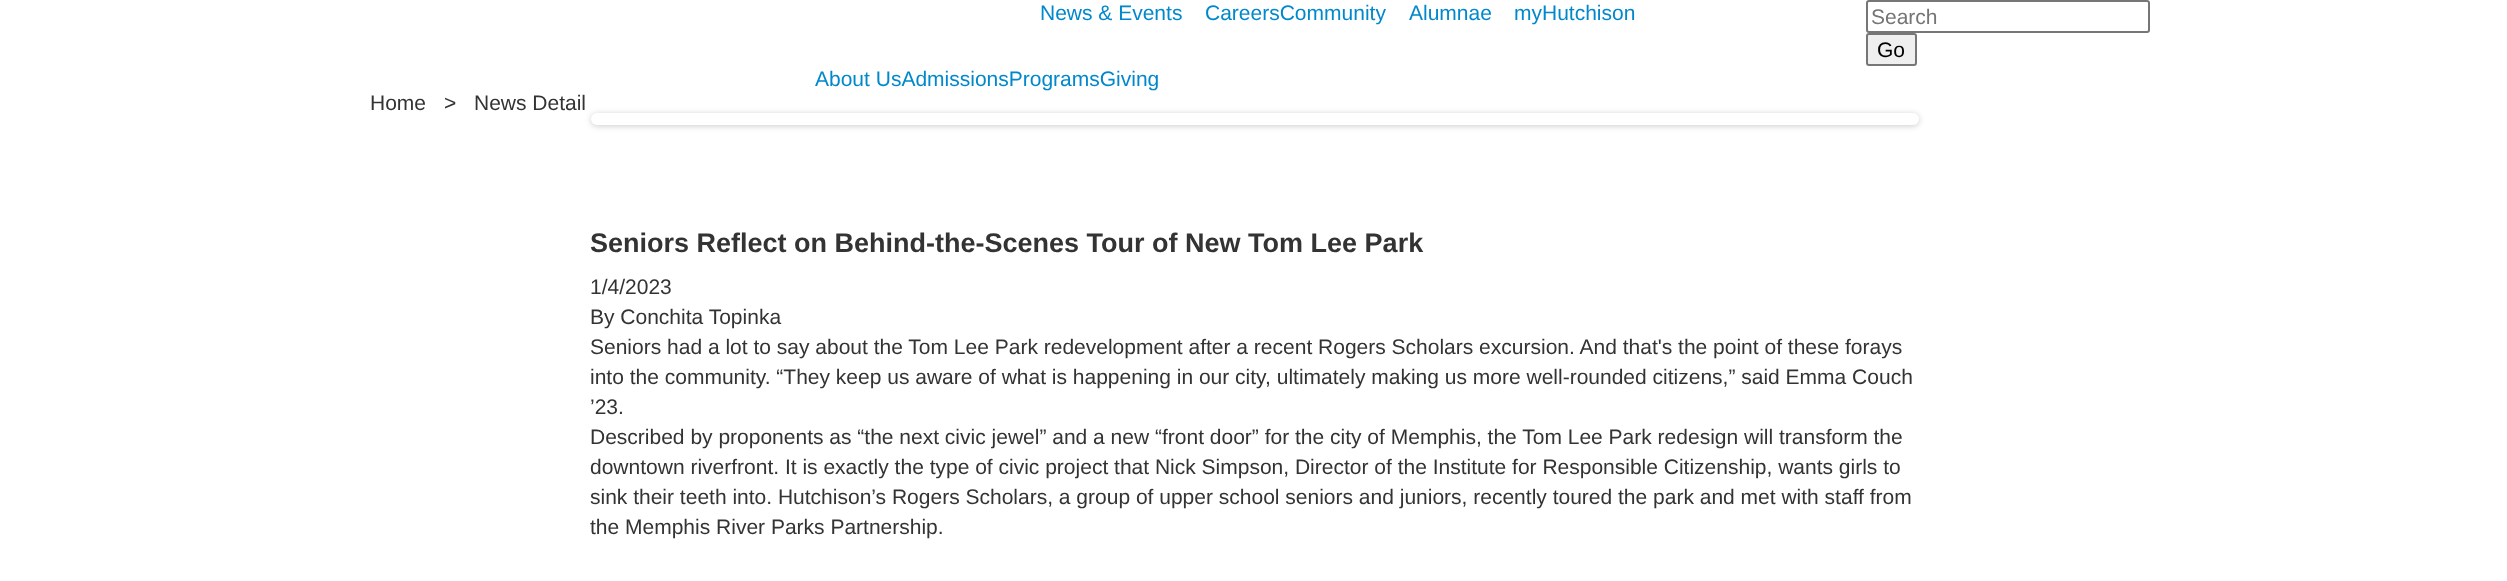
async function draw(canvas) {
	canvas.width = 2507;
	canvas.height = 581;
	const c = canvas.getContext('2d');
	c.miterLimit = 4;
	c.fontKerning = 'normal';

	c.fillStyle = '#fff';
	c.fillRect(0, 0, 2507, 581);
	c.font = '21px Liberation Sans';
	c.fillStyle = '#08c';
	for (const [text, x, y] of [
		['News & Events', 1040, 20],
		['CareersCommunity', 1205, 20],
		['Alumnae', 1409, 20],
		['myHutchison', 1514, 20],
	]) {
		c.fillText(text, x, y);
	}
	c.beginPath();
	c.roundRect(1867, 1, 282, 31, 2);
	c.strokeStyle = '#767676';
	c.lineWidth = 2;
	c.stroke();
	c.fillStyle = '#757575';
	c.fillText('Search', 1871, 24);
	c.fillStyle = '#efefef';
	c.beginPath();
	c.roundRect(1867, 34, 49, 31, 2);
	c.fill();
	c.stroke();
	c.fillStyle = '#000';
	c.fillText('Go', 1877, 57);
	c.fillStyle = '#08c';
	c.fillText('About UsAdmissionsProgramsGiving', 815, 86);
	c.fillStyle = '#333';
	for (const [text, x, y] of [
		['Home', 370, 110],
		['>', 444, 110],
		['News Detail', 474, 110],
	]) {
		c.fillText(text, x, y);
	}
	c.fillStyle = '#00000033';
	c.filter = 'blur(3px)';
	c.beginPath();
	c.roundRect(591, 114, 1328, 12, 6);
	c.fill();
	c.filter = 'none';
	c.fillStyle = '#fff';
	c.beginPath();
	c.roundRect(591, 113, 1328, 12, 6);
	c.fill();
	c.font = 'bold 27px Liberation Sans';
	c.fillStyle = '#333';
	c.fillText('Seniors Reflect on Behind-the-Scenes Tour of New Tom Lee Park', 590, 252);
	c.font = '21px Liberation Sans';
	for (const [text, x, y] of [
		['1/4/2023', 590, 294],
		['By Conchita Topinka', 590, 324],
		['Seniors had a lot to say about the Tom Lee Park redevelopment after a recent Rogers Scholars excursion. And that\'s the point of these forays', 590, 354],
		['into the community. “They keep us aware of what is happening in our city, ultimately making us more well-rounded citizens,” said Emma Couch', 590, 384],
		['’23.', 590, 414],
		['Described by proponents as “the next civic jewel” and a new “front door” for the city of Memphis, the Tom Lee Park redesign will transform the', 590, 444],
		['downtown riverfront. It is exactly the type of civic project that Nick Simpson, Director of the Institute for Responsible Citizenship, wants girls to', 590, 474],
		['sink their teeth into. Hutchison’s Rogers Scholars, a group of upper school seniors and juniors, recently toured the park and met with staff from', 590, 504],
		['the Memphis River Parks Partnership.', 590, 534],
	]) {
		c.fillText(text, x, y);
	}
}

draw(document.querySelector('canvas'));
